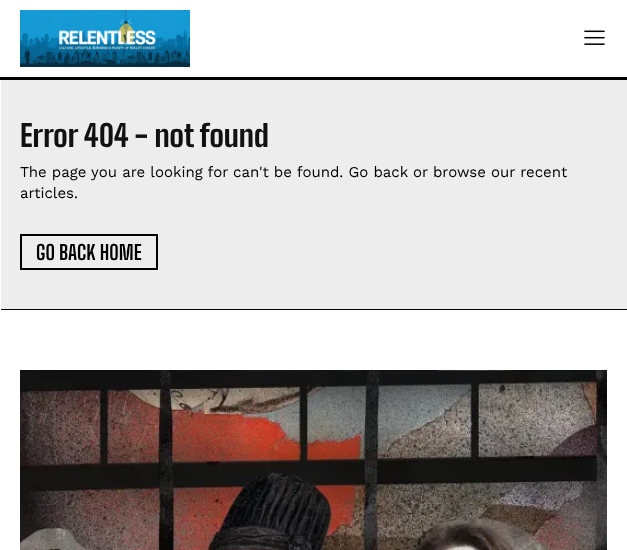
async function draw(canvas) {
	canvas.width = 627;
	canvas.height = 550;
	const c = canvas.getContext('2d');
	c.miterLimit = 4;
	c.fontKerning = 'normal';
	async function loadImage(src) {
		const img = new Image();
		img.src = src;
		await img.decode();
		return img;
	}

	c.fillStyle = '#fff';
	c.fillRect(0, 0, 627, 550);
	c.fillStyle = '#000';
	c.fillRect(0, 77, 627, 3);
	c.drawImage(await loadImage('img1.png'), 20, 10, 170, 57);
	c.drawImage(await loadImage('img2.png'), 584, 30, 21, 15);
	c.fillStyle = '#ededed';
	c.fillRect(1, 80, 626, 229);
	c.fillStyle = '#000';
	c.fillRect(1, 309, 626, 1);
	c.font = '800 30px Big Shoulders Text';
	c.fillStyle = '#111';
	c.fillText('Error 404 - not found', 20, 147);
	c.font = '15px Work Sans';
	c.fillStyle = '#000';
	c.fillText('The page you are looking for can\'t be found. Go back or browse our recent', 20, 177);
	c.fillText('articles.', 20, 198);
	c.strokeStyle = '#000';
	c.lineWidth = 2;
	c.strokeRect(21, 235, 136, 34);
	c.font = 'bold 20px Big Shoulders Text';
	c.fillText('GO BACK HOME', 36, 260);
	c.drawImage(await loadImage('img3.png'), 20, 370, 587, 180);
}

draw(document.querySelector('canvas'));
